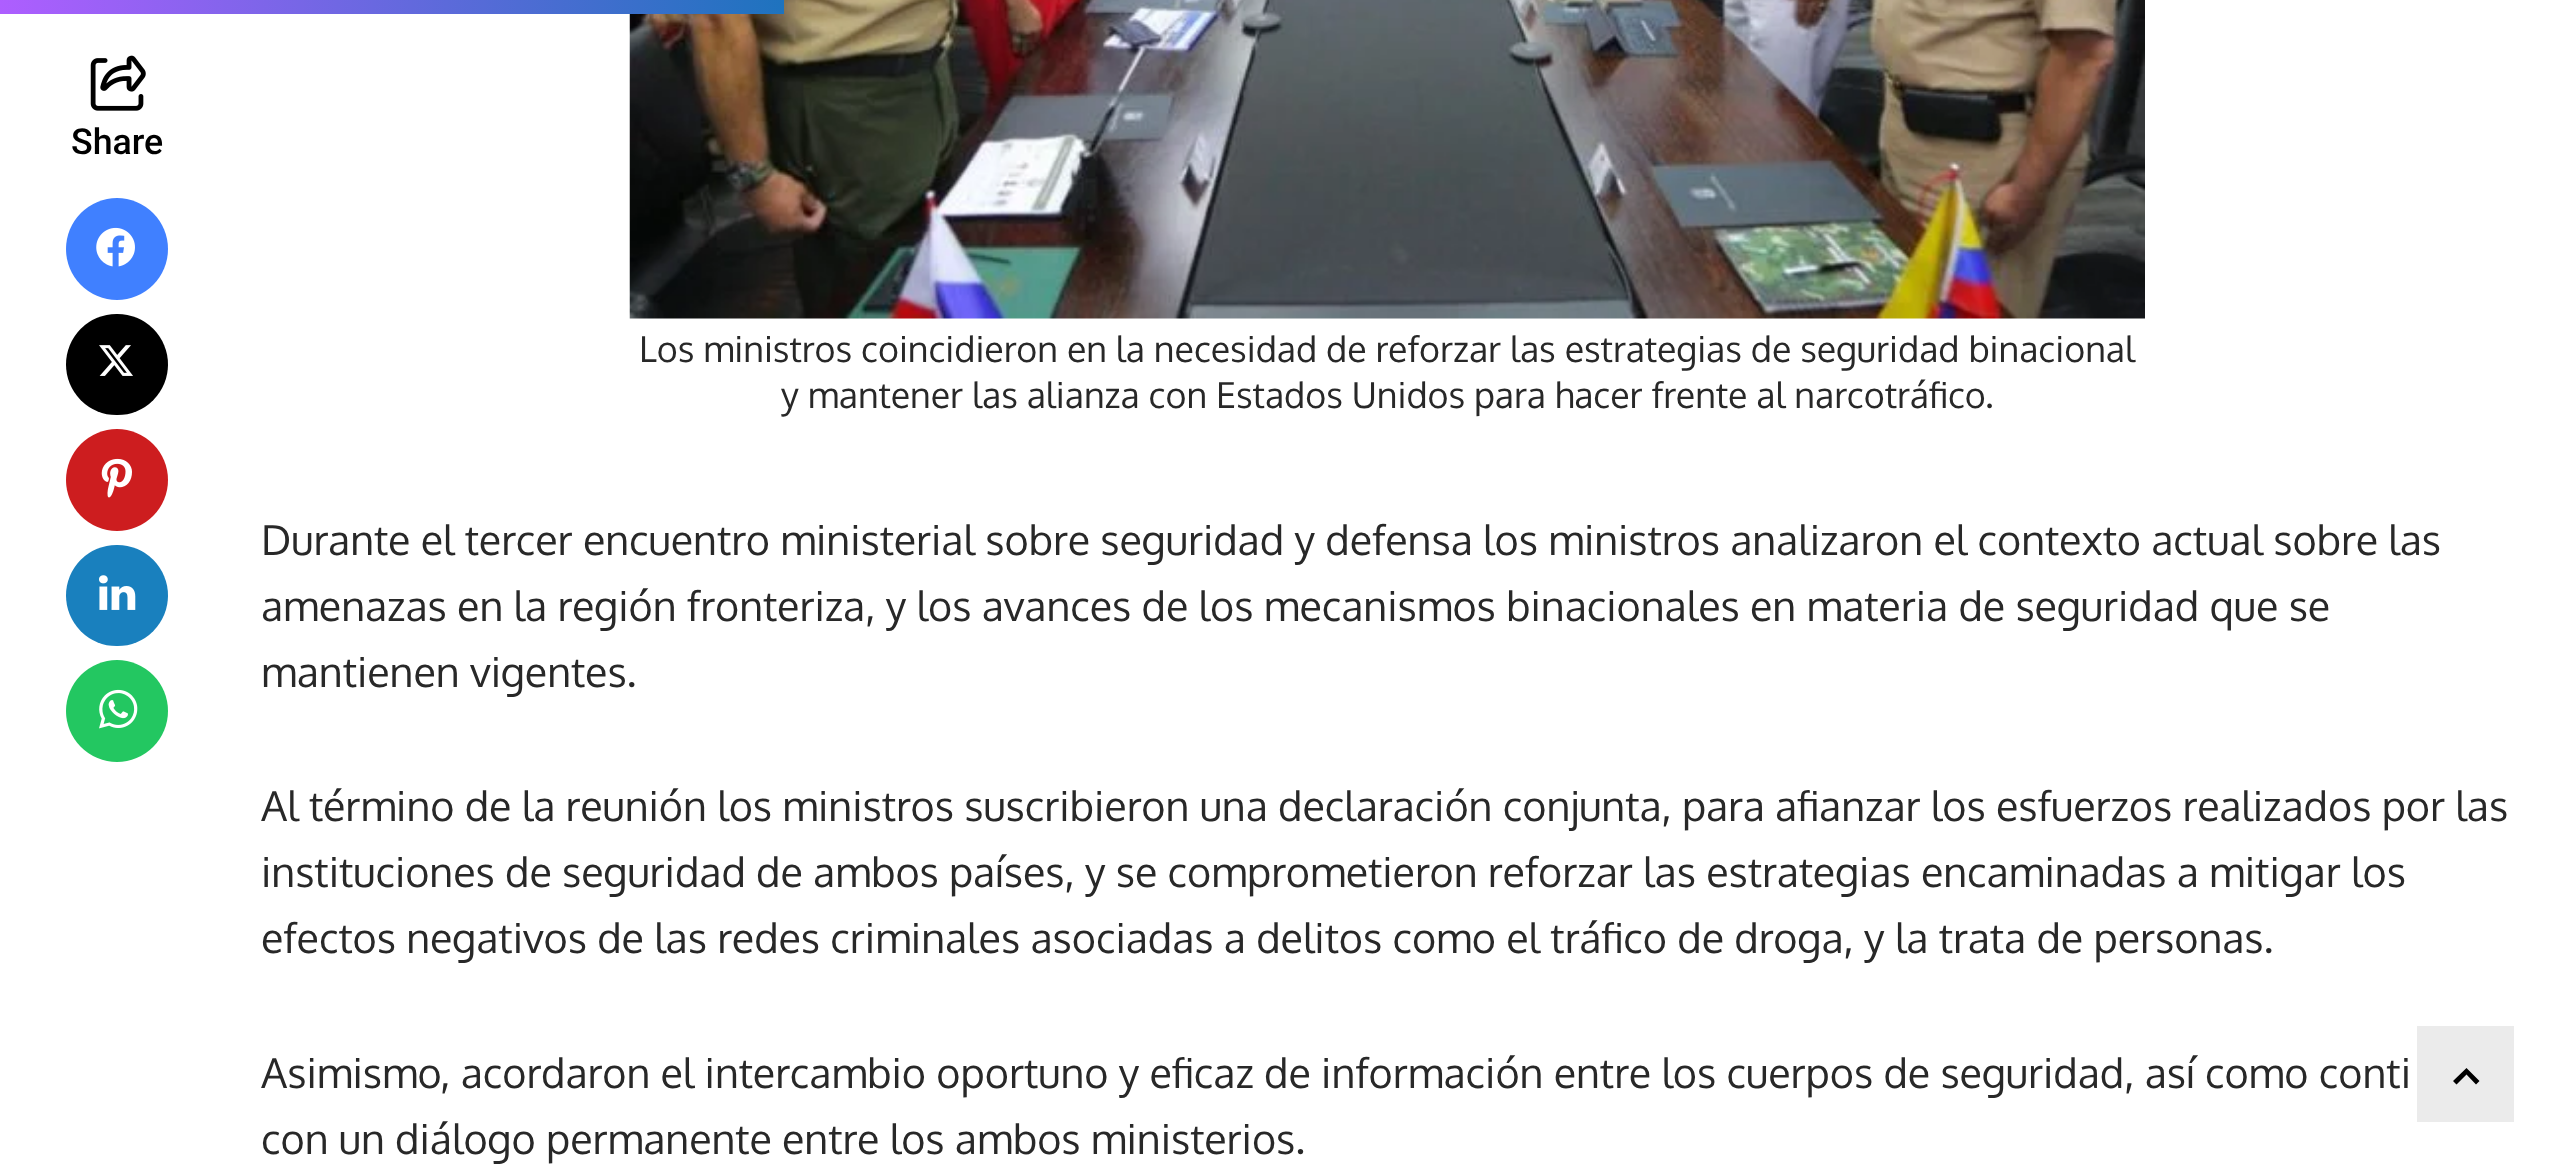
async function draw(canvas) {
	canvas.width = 2568;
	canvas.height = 1176;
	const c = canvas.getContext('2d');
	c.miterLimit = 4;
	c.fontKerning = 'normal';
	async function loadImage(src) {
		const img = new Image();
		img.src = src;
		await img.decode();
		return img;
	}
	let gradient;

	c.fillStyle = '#fff';
	c.fillRect(0, 0, 2568, 1176);
	c.drawImage(await loadImage('img7.png'), 629, 0, 1516, 319);
	gradient = c.createLinearGradient(0, 6.9, 784, 6.9);
	gradient.addColorStop(0, '#ae5eff');
	gradient.addColorStop(1, '#1e73be');
	c.fillStyle = gradient;
	c.fillRect(0, 0, 784, 14);
	c.drawImage(await loadImage('img1.png'), 90, 55, 56, 56);
	c.font = '500 35.75px Roboto';
	c.fillStyle = '#000';
	c.fillText('Share', 71, 154);
	c.fillStyle = '#4080ff';
	c.beginPath();
	c.arc(117, 249, 51, 0, 2 * Math.PI);
	c.fill();
	c.drawImage(await loadImage('img2.png'), 96, 227, 39, 40);
	c.fillStyle = '#000';
	c.beginPath();
	c.roundRect(66, 314, 102, 101, 50.5);
	c.fill();
	c.drawImage(await loadImage('img3.png'), 99, 345, 34, 31);
	c.fillStyle = '#cd1d1f';
	c.beginPath();
	c.arc(117, 480, 51, 0, 2 * Math.PI);
	c.fill();
	c.drawImage(await loadImage('img4.png'), 101, 458, 31, 40);
	c.fillStyle = '#1980be';
	c.beginPath();
	c.roundRect(66, 545, 102, 101, 50.5);
	c.fill();
	c.drawImage(await loadImage('img5.png'), 99, 575, 37, 35);
	c.fillStyle = '#23c761';
	c.beginPath();
	c.arc(117, 711, 51, 0, 2 * Math.PI);
	c.fill();
	c.drawImage(await loadImage('img6.png'), 99, 689, 39, 40);
	c.font = '35.75px Oxygen';
	c.fillStyle = '#282828';
	c.fillText('Los ministros coincidieron en la necesidad de reforzar las estrategias de seguridad binacional', 639, 362);
	c.fillText('y mantener las alianza con Estados Unidos para hacer frente al narcotráfico.', 781, 408);
	c.font = '41.25px Oxygen';
	for (const [text, x, y] of [
		['Durante el tercer encuentro ministerial sobre seguridad y defensa los ministros analizaron el contexto actual sobre las', 261, 555],
		['amenazas en la región fronteriza, y los avances de los mecanismos binacionales en materia de seguridad que se', 261, 621],
		['mantienen vigentes.', 261, 687],
		['Al término de la reunión los ministros suscribieron una declaración conjunta, para afianzar los esfuerzos realizados por las', 261, 821],
		['instituciones de seguridad de ambos países, y se comprometieron reforzar las estrategias encaminadas a mitigar los', 261, 887],
		['efectos negativos de las redes criminales asociadas a delitos como el tráfico de droga, y la trata de personas.', 261, 953],
		['Asimismo, acordaron el intercambio oportuno y eficaz de información entre los cuerpos de seguridad, así como conti', 261, 1088],
		['con un diálogo permanente entre los ambos ministerios.', 261, 1154],
	]) {
		c.fillText(text, x, y);
	}
	c.fillStyle = '#ebebeb';
	c.fillRect(2417, 1026, 97, 96);
	c.fillStyle = '#000';
	c.beginPath();
	c.moveTo(2453, 1081);
	c.lineTo(2466.5, 1068);
	c.lineTo(2466.5, 1074.5);
	c.lineTo(2456.5, 1084.5);
	c.closePath();
	c.moveTo(2479.5, 1081);
	c.lineTo(2476, 1084.5);
	c.lineTo(2466.5, 1074.5);
	c.lineTo(2466.5, 1068);
	c.closePath();
	c.fill();
}

draw(document.querySelector('canvas'));
